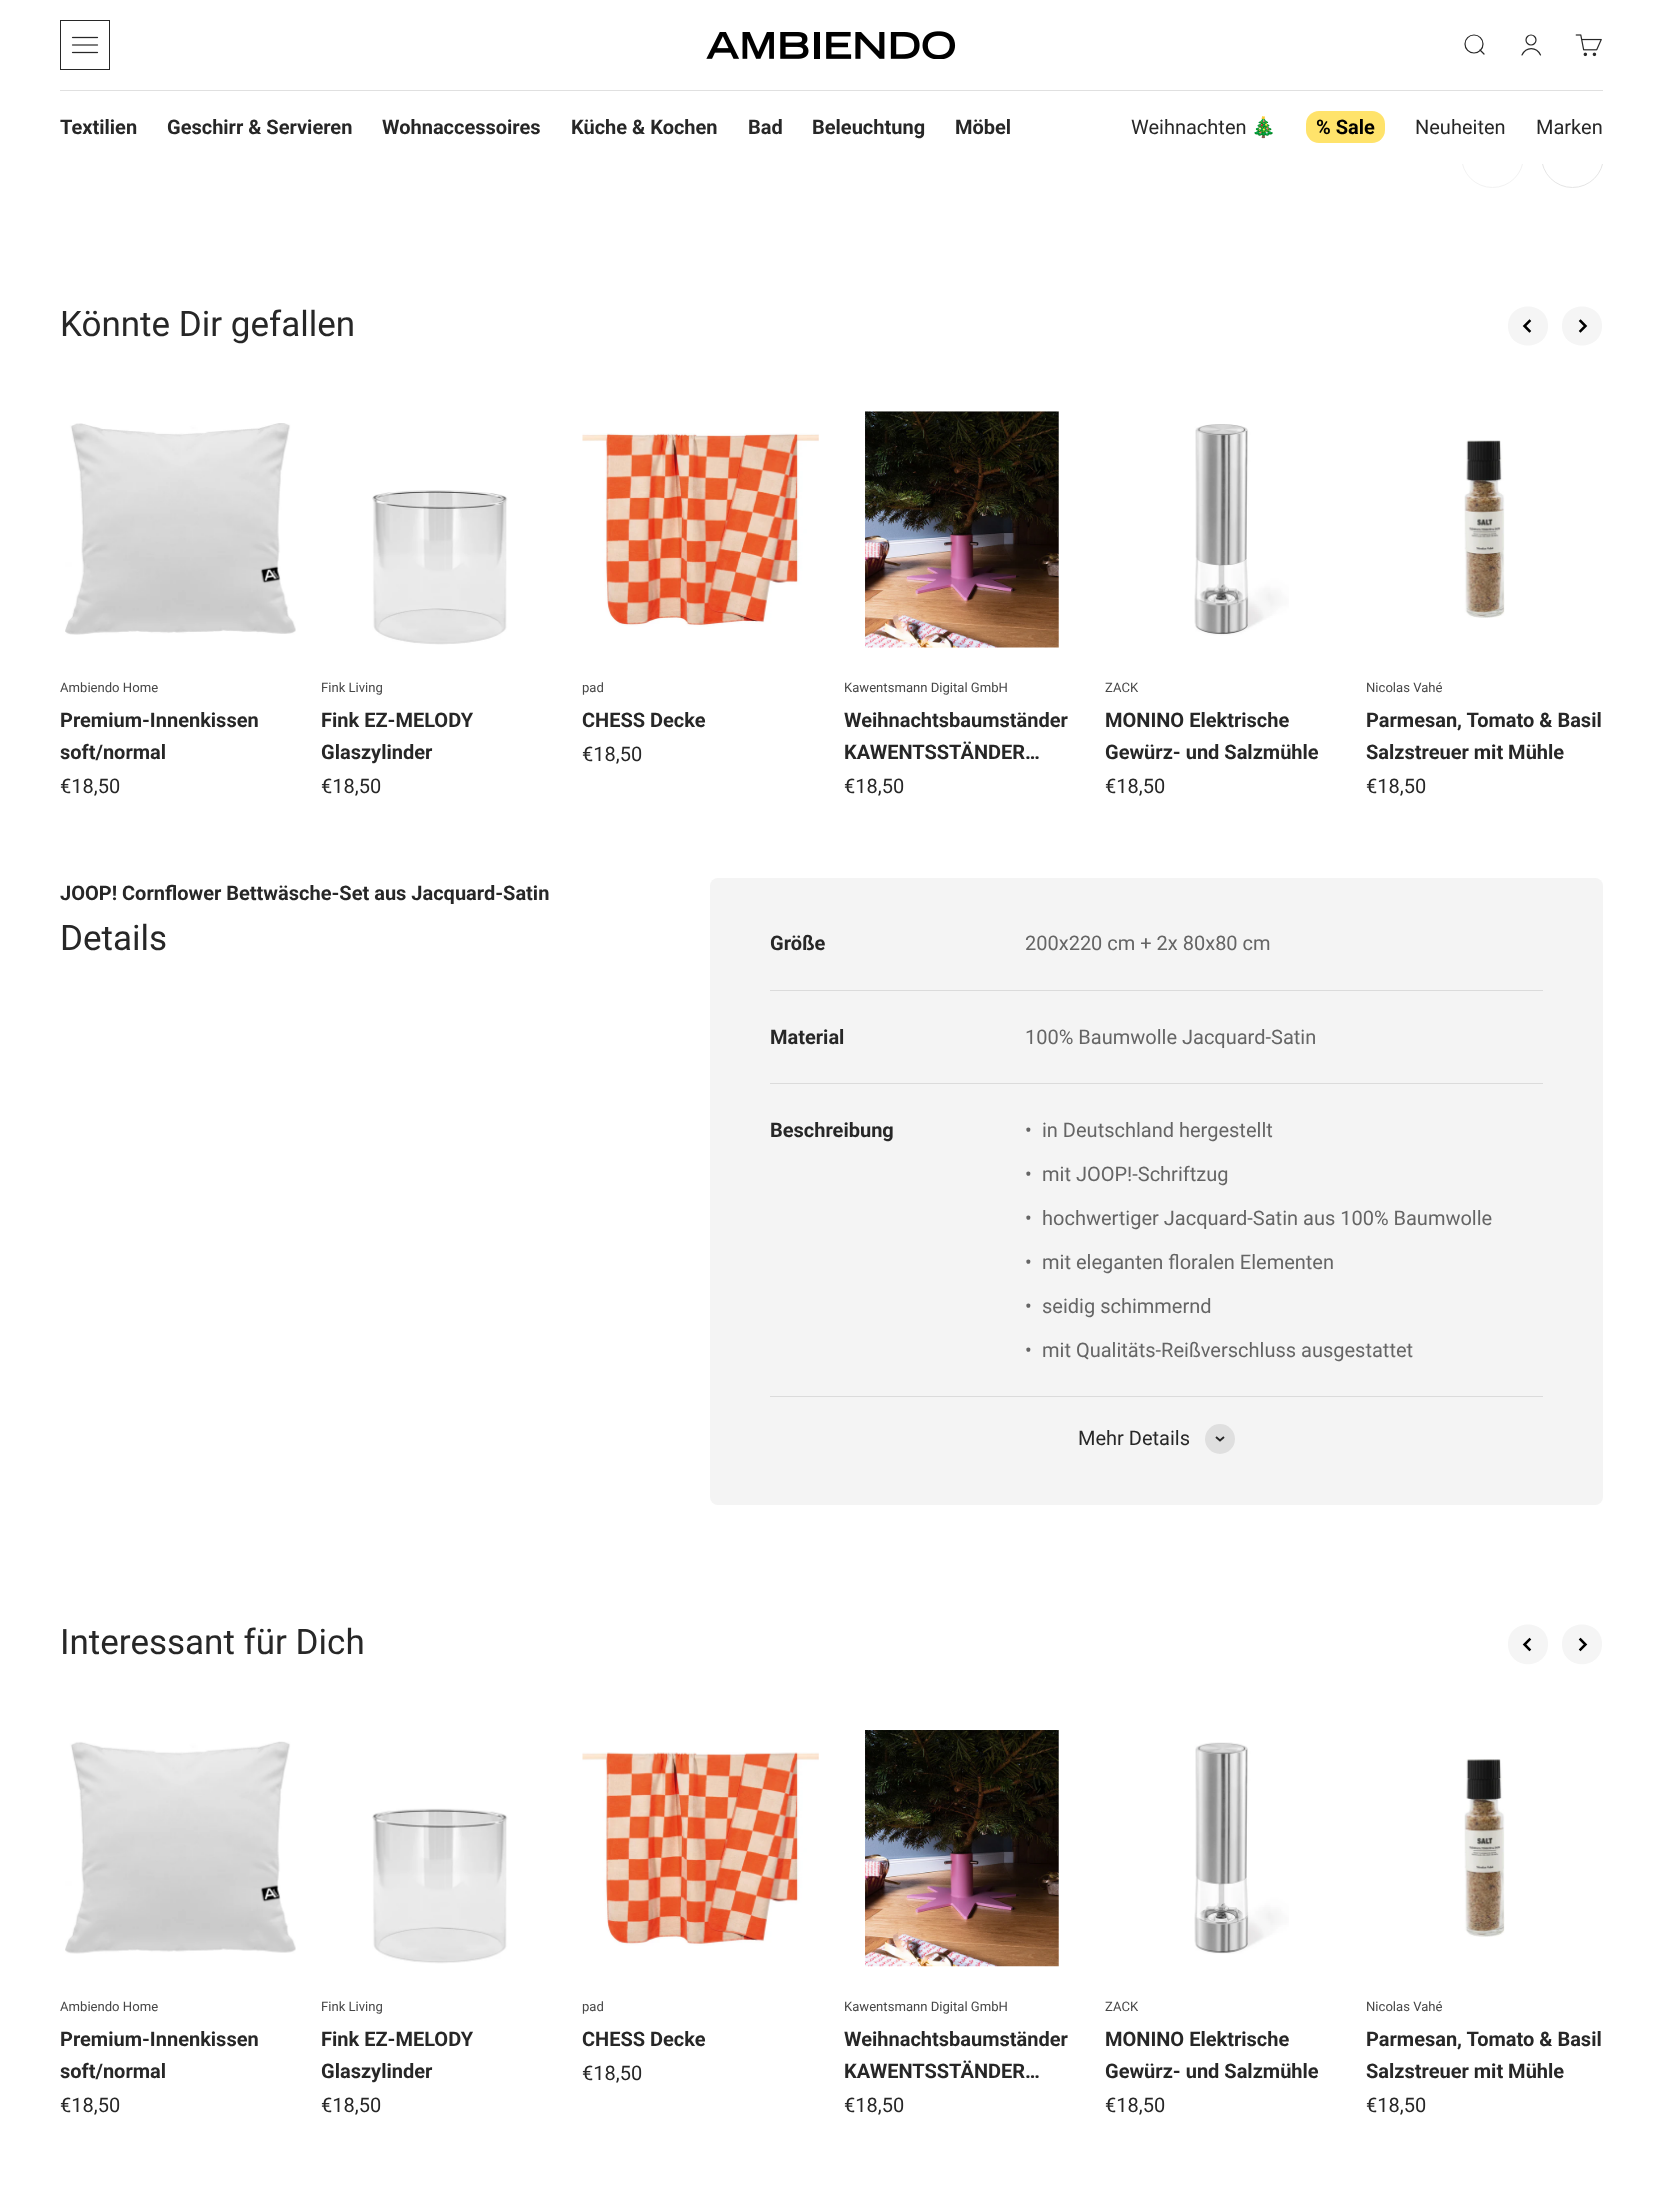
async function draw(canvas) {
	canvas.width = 1662;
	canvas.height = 2185;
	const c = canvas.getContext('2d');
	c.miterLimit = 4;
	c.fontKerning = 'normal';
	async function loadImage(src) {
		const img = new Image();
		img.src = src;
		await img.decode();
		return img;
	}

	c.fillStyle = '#fff';
	c.fillRect(0, 0, 1662, 2185);
	c.beginPath();
	c.arc(1492.5, 156.5, 31, 0, 2 * Math.PI);
	c.strokeStyle = '#f2f2f2';
	c.stroke();
	c.beginPath();
	c.arc(1572.5, 156.5, 31, 0, 2 * Math.PI);
	c.strokeStyle = '#e5e5e5';
	c.stroke();
	c.fillRect(1461, 125, 143, 39);
	c.strokeStyle = '#272727';
	c.strokeRect(60.5, 20.5, 49, 49);
	c.drawImage(await loadImage('img1.png'), 71, 36, 28, 18);
	c.drawImage(await loadImage('img2.png'), 706, 31, 250, 28);
	c.beginPath();
	c.arc(1474, 44, 9, 0, 2 * Math.PI);
	c.lineWidth = 1.2;
	c.stroke();
	c.beginPath();
	c.moveTo(1480, 50);
	c.lineTo(1484, 54);
	c.lineCap = 'round';
	c.lineJoin = 'round';
	c.stroke();
	c.beginPath();
	c.arc(1531, 40, 5, 0, 2 * Math.PI);
	c.stroke();
	c.beginPath();
	c.moveTo(1522, 55);
	c.bezierCurveTo(1526, 46.5, 1536.5, 46.5, 1540.5, 55);
	c.lineJoin = 'miter';
	c.stroke();
	c.drawImage(await loadImage('img3.png'), 1575, 34, 27, 23);
	c.fillStyle = '#e0e0e0';
	c.fillRect(60, 90, 1543, 1);
	c.font = 'bold 20px Roboto';
	c.fillStyle = '#272727';
	for (const [text, x, y] of [
		['Textilien', 60, 134],
		['Geschirr & Servieren', 167, 134],
		['Wohnaccessoires', 382, 134],
		['Küche & Kochen', 571, 134],
		['Bad', 748, 134],
		['Beleuchtung', 812, 134],
		['Möbel', 955, 134],
	]) {
		c.fillText(text, x, y);
	}
	c.font = '20px Roboto';
	c.fillText('Weihnachten', 1131, 134);
	c.font = '20px Noto Color Emoji';
	c.fillText('🎄', 1251, 134);
	c.fillStyle = '#ffe36b';
	c.beginPath();
	c.roundRect(1306, 111, 79, 32, 13);
	c.fill();
	c.font = 'bold 20px Roboto';
	c.fillStyle = '#000';
	c.fillText('% Sale', 1316, 134);
	c.font = '20px Roboto';
	c.fillStyle = '#272727';
	c.fillText('Neuheiten', 1415, 134);
	c.fillText('Marken', 1536, 134);
	c.font = '35px Roboto';
	c.fillText('Könnte Dir gefallen', 60, 336);
	c.fillStyle = '#f5f5f5';
	c.beginPath();
	c.moveTo(1548, 326);
	c.bezierCurveTo(1548, 352, 1508, 352, 1508, 326);
	c.bezierCurveTo(1508, 300, 1548, 300, 1548, 326);
	c.closePath();
	c.fill();
	c.beginPath();
	c.moveTo(1529.5, 331);
	c.lineTo(1524.5, 326);
	c.lineTo(1529.5, 321);
	c.strokeStyle = '#000';
	c.lineWidth = 2.5;
	c.lineCap = 'square';
	c.stroke();
	c.beginPath();
	c.moveTo(1562, 326);
	c.bezierCurveTo(1562, 300, 1602, 300, 1602, 326);
	c.bezierCurveTo(1602, 352, 1562, 352, 1562, 326);
	c.closePath();
	c.fill();
	c.beginPath();
	c.moveTo(1580.5, 321);
	c.lineTo(1585.5, 326);
	c.lineTo(1580.5, 331);
	c.stroke();
	c.drawImage(await loadImage('img4.png'), 65, 423, 231, 212);
	c.font = '13.1px Roboto';
	c.fillStyle = '#474747';
	c.fillText('Ambiendo Home', 60, 692);
	c.font = 'bold 20px Roboto';
	c.fillStyle = '#272727';
	c.fillText('Premium-Innenkissen', 60, 727);
	c.fillText('soft/normal', 60, 759);
	c.font = '20px Roboto';
	c.fillText('€18,50', 60, 793);
	c.drawImage(await loadImage('img5.png'), 372, 490, 136, 155);
	c.font = '13.1px Roboto';
	c.fillStyle = '#474747';
	c.fillText('Fink Living', 321, 692);
	c.font = 'bold 20px Roboto';
	c.fillStyle = '#272727';
	c.fillText('Fink EZ-MELODY', 321, 727);
	c.fillText('Glaszylinder', 321, 759);
	c.font = '20px Roboto';
	c.fillText('€18,50', 321, 793);
	c.drawImage(await loadImage('img6.png'), 582, 433, 237, 194);
	c.font = '13.1px Roboto';
	c.fillStyle = '#474747';
	c.fillText('pad', 582, 692);
	c.font = 'bold 20px Roboto';
	c.fillStyle = '#272727';
	c.fillText('CHESS Decke', 582, 727);
	c.font = '20px Roboto';
	c.fillText('€18,50', 582, 761);
	c.drawImage(await loadImage('img7.png'), 865, 411, 194, 237);
	c.font = '13.1px Roboto';
	c.fillStyle = '#474747';
	c.fillText('Kawentsmann Digital GmbH', 844, 692);
	c.font = 'bold 20px Roboto';
	c.fillStyle = '#272727';
	c.fillText('Weihnachtsbaumständer', 844, 727);
	c.fillText('KAWENTSSTÄNDER…', 844, 759);
	c.font = '20px Roboto';
	c.fillText('€18,50', 844, 793);
	c.drawImage(await loadImage('img8.png'), 1194, 424, 95, 212);
	c.font = '13.1px Roboto';
	c.fillStyle = '#474747';
	c.fillText('ZACK', 1105, 692);
	c.font = 'bold 20px Roboto';
	c.fillStyle = '#272727';
	c.fillText('MONINO Elektrische', 1105, 727);
	c.fillText('Gewürz- und Salzmühle', 1105, 759);
	c.font = '20px Roboto';
	c.fillText('€18,50', 1105, 793);
	c.drawImage(await loadImage('img9.png'), 1464, 440, 41, 178);
	c.font = '13.1px Roboto';
	c.fillStyle = '#474747';
	c.fillText('Nicolas Vahé', 1366, 692);
	c.font = 'bold 20px Roboto';
	c.fillStyle = '#272727';
	c.fillText('Parmesan, Tomato & Basil', 1366, 727);
	c.fillText('Salzstreuer mit Mühle', 1366, 759);
	c.font = '20px Roboto';
	c.fillText('€18,50', 1366, 793);
	c.font = 'bold 20px Roboto';
	c.fillText('JOOP! Cornflower Bettwäsche-Set aus Jacquard-Satin', 60, 900);
	c.font = '35px Roboto';
	c.fillText('Details', 60, 950);
	c.fillStyle = '#f4f4f4';
	c.beginPath();
	c.roundRect(710, 878, 893, 627, 8);
	c.fill();
	c.font = 'bold 20px Roboto';
	c.fillStyle = '#272727';
	c.fillText('Größe', 770, 950);
	c.font = '20px Roboto';
	c.fillStyle = '#656565';
	c.fillText('200x220 cm + 2x 80x80 cm', 1025, 950);
	c.fillStyle = '#dbdbdb';
	c.fillRect(770, 990, 773, 1);
	c.font = 'bold 20px Roboto';
	c.fillStyle = '#272727';
	c.fillText('Material', 770, 1044);
	c.font = '20px Roboto';
	c.fillStyle = '#656565';
	c.fillText('100% Baumwolle Jacquard-Satin', 1025, 1044);
	c.fillStyle = '#dbdbdb';
	c.fillRect(770, 1083, 773, 1);
	c.font = 'bold 20px Roboto';
	c.fillStyle = '#272727';
	c.fillText('Beschreibung', 770, 1137);
	c.font = '20px Roboto';
	c.fillStyle = '#656565';
	for (const [text, x, y] of [
		['•', 1025, 1137],
		['in Deutschland hergestellt', 1042, 1137],
		['•', 1025, 1181],
		['mit JOOP!-Schriftzug', 1042, 1181],
		['•', 1025, 1225],
		['hochwertiger Jacquard-Satin aus 100% Baumwolle', 1042, 1225],
		['•', 1025, 1269],
		['mit eleganten floralen Elementen', 1042, 1269],
		['•', 1025, 1313],
		['seidig schimmernd', 1042, 1313],
		['•', 1025, 1357],
		['mit Qualitäts-Reißverschluss ausgestattet', 1042, 1357],
	]) {
		c.fillText(text, x, y);
	}
	c.fillStyle = '#dbdbdb';
	c.fillRect(770, 1396, 773, 1);
	c.fillStyle = '#272727';
	c.fillText('Mehr Details', 1078, 1445);
	c.fillStyle = '#dfdfdf';
	c.beginPath();
	c.arc(1220, 1439, 15, 0, 2 * Math.PI);
	c.fill();
	c.beginPath();
	c.moveTo(1216, 1437);
	c.lineTo(1220, 1440.5);
	c.lineTo(1224, 1437);
	c.strokeStyle = '#272727';
	c.lineWidth = 1.9;
	c.lineCap = 'butt';
	c.stroke();
	c.font = '35px Roboto';
	c.fillStyle = '#272727';
	c.fillText('Interessant für Dich', 60, 1654);
	c.fillStyle = '#f5f5f5';
	c.beginPath();
	c.moveTo(1548, 1644);
	c.bezierCurveTo(1548, 1671, 1508, 1671, 1508, 1644);
	c.bezierCurveTo(1508, 1618, 1548, 1618, 1548, 1644);
	c.closePath();
	c.fill();
	c.beginPath();
	c.moveTo(1529.5, 1649.5);
	c.lineTo(1524.5, 1644.5);
	c.lineTo(1529.5, 1639.5);
	c.strokeStyle = '#000';
	c.lineWidth = 2.5;
	c.lineCap = 'square';
	c.stroke();
	c.beginPath();
	c.moveTo(1562, 1644);
	c.bezierCurveTo(1562, 1618, 1602, 1618, 1602, 1644);
	c.bezierCurveTo(1602, 1671, 1562, 1671, 1562, 1644);
	c.closePath();
	c.fill();
	c.beginPath();
	c.moveTo(1580.5, 1639.5);
	c.lineTo(1585.5, 1644.5);
	c.lineTo(1580.5, 1649.5);
	c.stroke();
	c.drawImage(await loadImage('img10.png'), 65, 1741, 231, 213);
	c.font = '13.1px Roboto';
	c.fillStyle = '#474747';
	c.fillText('Ambiendo Home', 60, 2011);
	c.font = 'bold 20px Roboto';
	c.fillStyle = '#272727';
	c.fillText('Premium-Innenkissen', 60, 2046);
	c.fillText('soft/normal', 60, 2078);
	c.font = '20px Roboto';
	c.fillText('€18,50', 60, 2112);
	c.drawImage(await loadImage('img11.png'), 372, 1808, 136, 156);
	c.font = '13.1px Roboto';
	c.fillStyle = '#474747';
	c.fillText('Fink Living', 321, 2011);
	c.font = 'bold 20px Roboto';
	c.fillStyle = '#272727';
	c.fillText('Fink EZ-MELODY', 321, 2046);
	c.fillText('Glaszylinder', 321, 2078);
	c.font = '20px Roboto';
	c.fillText('€18,50', 321, 2112);
	c.drawImage(await loadImage('img12.png'), 582, 1752, 237, 194);
	c.font = '13.1px Roboto';
	c.fillStyle = '#474747';
	c.fillText('pad', 582, 2011);
	c.font = 'bold 20px Roboto';
	c.fillStyle = '#272727';
	c.fillText('CHESS Decke', 582, 2046);
	c.font = '20px Roboto';
	c.fillText('€18,50', 582, 2080);
	c.drawImage(await loadImage('img13.png'), 865, 1730, 194, 237);
	c.font = '13.1px Roboto';
	c.fillStyle = '#474747';
	c.fillText('Kawentsmann Digital GmbH', 844, 2011);
	c.font = 'bold 20px Roboto';
	c.fillStyle = '#272727';
	c.fillText('Weihnachtsbaumständer', 844, 2046);
	c.fillText('KAWENTSSTÄNDER…', 844, 2078);
	c.font = '20px Roboto';
	c.fillText('€18,50', 844, 2112);
	c.drawImage(await loadImage('img14.png'), 1194, 1742, 95, 212);
	c.font = '13.1px Roboto';
	c.fillStyle = '#474747';
	c.fillText('ZACK', 1105, 2011);
	c.font = 'bold 20px Roboto';
	c.fillStyle = '#272727';
	c.fillText('MONINO Elektrische', 1105, 2046);
	c.fillText('Gewürz- und Salzmühle', 1105, 2078);
	c.font = '20px Roboto';
	c.fillText('€18,50', 1105, 2112);
	c.drawImage(await loadImage('img15.png'), 1464, 1759, 41, 178);
	c.font = '13.1px Roboto';
	c.fillStyle = '#474747';
	c.fillText('Nicolas Vahé', 1366, 2011);
	c.font = 'bold 20px Roboto';
	c.fillStyle = '#272727';
	c.fillText('Parmesan, Tomato & Basil', 1366, 2046);
	c.fillText('Salzstreuer mit Mühle', 1366, 2078);
	c.font = '20px Roboto';
	c.fillText('€18,50', 1366, 2112);
}

draw(document.querySelector('canvas'));
